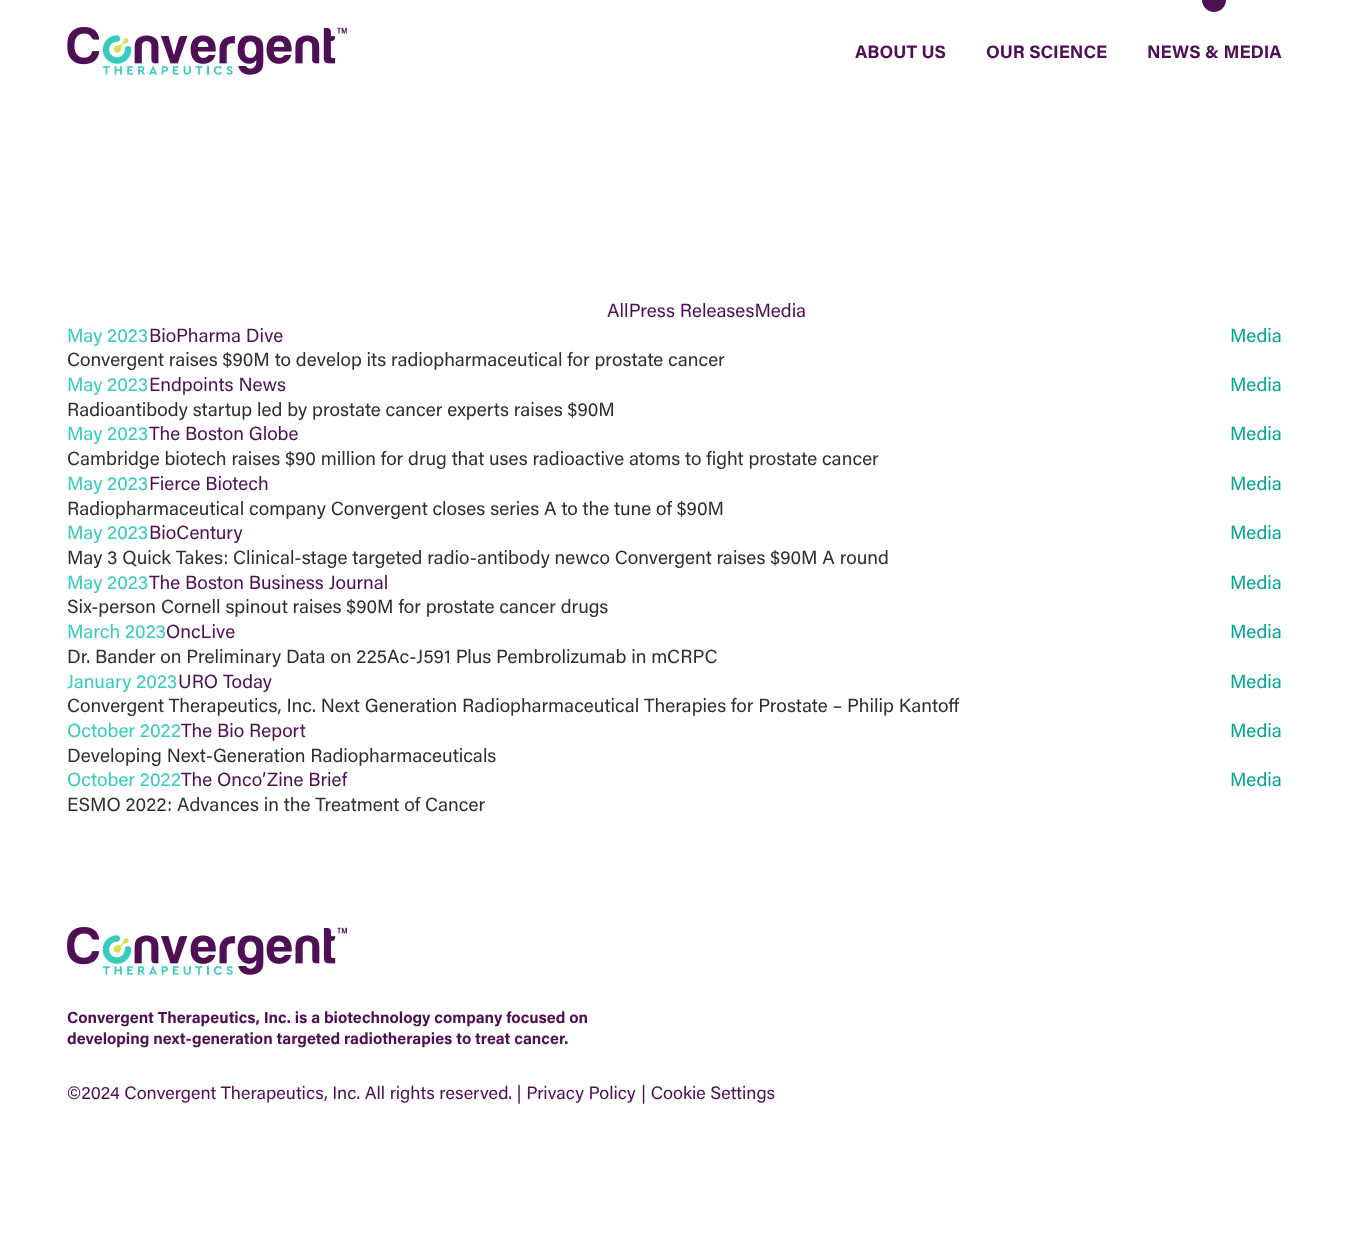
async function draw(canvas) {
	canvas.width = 1349;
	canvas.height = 1249;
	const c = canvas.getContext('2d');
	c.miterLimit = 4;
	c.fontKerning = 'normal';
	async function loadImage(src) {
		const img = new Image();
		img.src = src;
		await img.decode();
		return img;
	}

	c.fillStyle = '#fff';
	c.fillRect(0, 0, 1349, 1249);
	c.drawImage(await loadImage('img1.png'), 67, 27, 280, 48);
	c.font = 'bold 18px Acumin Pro';
	c.fillStyle = '#4f0f54';
	c.fillText('ABOUT US', 855, 58);
	c.fillText('OUR SCIENCE', 986, 58);
	c.beginPath();
	c.moveTo(1202, -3);
	c.lineTo(1226, -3);
	c.lineTo(1226, 0);
	c.bezierCurveTo(1226, 6.5, 1220.5, 12, 1214, 12);
	c.bezierCurveTo(1207.5, 12, 1202, 6.5, 1202, 0);
	c.closePath();
	c.fill();
	c.fillText('NEWS & MEDIA', 1147, 58);
	c.font = '19px Acumin Pro';
	c.fillText('AllPress ReleasesMedia', 607, 317);
	c.fillStyle = '#37ccbe';
	c.fillText('May 2023', 67, 342);
	c.fillStyle = '#4f0f54';
	c.fillText('BioPharma Dive', 149, 342);
	c.fillStyle = '#05a596';
	c.fillText('Media', 1230, 342);
	c.fillStyle = '#2f2f31';
	c.fillText('Convergent raises $90M to develop its radiopharmaceutical for prostate cancer', 67, 366);
	c.fillStyle = '#37ccbe';
	c.fillText('May 2023', 67, 391);
	c.fillStyle = '#4f0f54';
	c.fillText('Endpoints News', 149, 391);
	c.fillStyle = '#05a596';
	c.fillText('Media', 1230, 391);
	c.fillStyle = '#2f2f31';
	c.fillText('Radioantibody startup led by prostate cancer experts raises $90M', 67, 416);
	c.fillStyle = '#37ccbe';
	c.fillText('May 2023', 67, 440);
	c.fillStyle = '#4f0f54';
	c.fillText('The Boston Globe', 149, 440);
	c.fillStyle = '#05a596';
	c.fillText('Media', 1230, 440);
	c.fillStyle = '#2f2f31';
	c.fillText('Cambridge biotech raises $90 million for drug that uses radioactive atoms to fight prostate cancer', 67, 465);
	c.fillStyle = '#37ccbe';
	c.fillText('May 2023', 67, 490);
	c.fillStyle = '#4f0f54';
	c.fillText('Fierce Biotech', 149, 490);
	c.fillStyle = '#05a596';
	c.fillText('Media', 1230, 490);
	c.fillStyle = '#2f2f31';
	c.fillText('Radiopharmaceutical company Convergent closes series A to the tune of $90M', 67, 515);
	c.fillStyle = '#37ccbe';
	c.fillText('May 2023', 67, 539);
	c.fillStyle = '#4f0f54';
	c.fillText('BioCentury', 149, 539);
	c.fillStyle = '#05a596';
	c.fillText('Media', 1230, 539);
	c.fillStyle = '#2f2f31';
	c.fillText('May 3 Quick Takes: Clinical-stage targeted radio-antibody newco Convergent raises $90M A round', 67, 564);
	c.fillStyle = '#37ccbe';
	c.fillText('May 2023', 67, 589);
	c.fillStyle = '#4f0f54';
	c.fillText('The Boston Business Journal', 149, 589);
	c.fillStyle = '#05a596';
	c.fillText('Media', 1230, 589);
	c.fillStyle = '#2f2f31';
	c.fillText('Six-person Cornell spinout raises $90M for prostate cancer drugs', 67, 613);
	c.fillStyle = '#37ccbe';
	c.fillText('March 2023', 67, 638);
	c.fillStyle = '#4f0f54';
	c.fillText('OncLive', 166, 638);
	c.fillStyle = '#05a596';
	c.fillText('Media', 1230, 638);
	c.fillStyle = '#2f2f31';
	c.fillText('Dr. Bander on Preliminary Data on 225Ac-J591 Plus Pembrolizumab in mCRPC', 67, 663);
	c.fillStyle = '#37ccbe';
	c.fillText('January 2023', 67, 688);
	c.fillStyle = '#4f0f54';
	c.fillText('URO Today', 178, 688);
	c.fillStyle = '#05a596';
	c.fillText('Media', 1230, 688);
	c.fillStyle = '#2f2f31';
	c.fillText('Convergent Therapeutics, Inc. Next Generation Radiopharmaceutical Therapies for Prostate – Philip Kantoff', 67, 712);
	c.fillStyle = '#37ccbe';
	c.fillText('October 2022', 67, 737);
	c.fillStyle = '#4f0f54';
	c.fillText('The Bio Report', 181, 737);
	c.fillStyle = '#05a596';
	c.fillText('Media', 1230, 737);
	c.fillStyle = '#2f2f31';
	c.fillText('Developing Next-Generation Radiopharmaceuticals', 67, 762);
	c.fillStyle = '#37ccbe';
	c.fillText('October 2022', 67, 786);
	c.fillStyle = '#4f0f54';
	c.fillText('The Onco’Zine Brief', 181, 786);
	c.fillStyle = '#05a596';
	c.fillText('Media', 1230, 786);
	c.fillStyle = '#2f2f31';
	c.fillText('ESMO 2022: Advances in the Treatment of Cancer', 67, 811);
	c.drawImage(await loadImage('img2.png'), 67, 927, 280, 48);
	c.font = 'bold 16px Acumin Pro';
	c.fillStyle = '#4f0f54';
	c.fillText('Convergent Therapeutics, Inc. is a biotechnology company focused on', 67, 1023);
	c.fillText('developing next-generation targeted radiotherapies to treat cancer.', 67, 1044);
	c.font = '18px Acumin Pro';
	c.fillText('©2024 Convergent Therapeutics, Inc. All rights reserved. | Privacy Policy', 67, 1099);
	c.fillText('| Cookie Settings', 641, 1099);
}

draw(document.querySelector('canvas'));
